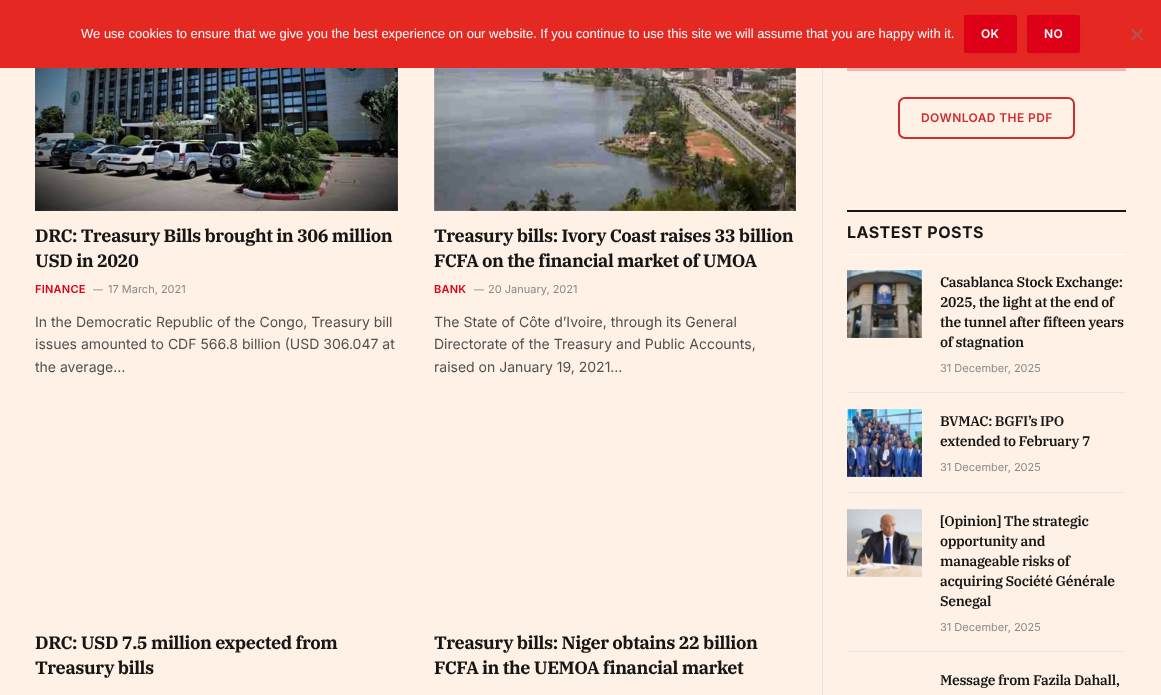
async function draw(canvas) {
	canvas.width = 1161;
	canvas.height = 695;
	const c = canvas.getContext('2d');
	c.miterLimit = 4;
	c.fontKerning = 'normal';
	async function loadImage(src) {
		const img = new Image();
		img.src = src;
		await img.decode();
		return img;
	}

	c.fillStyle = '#fff1e5';
	c.fillRect(0, 0, 1161, 695);
	c.fillStyle = '#e52822';
	c.fillRect(0, 0, 1161, 68);
	c.font = '13px Liberation Sans';
	c.fillStyle = '#fff';
	c.fillText('We use cookies to ensure that we give you the best experience on our website. If you continue to use this site we will assume that you are happy with it.', 81, 38);
	c.fillStyle = '#00000029';
	c.filter = 'blur(3.5px)';
	c.beginPath();
	c.rect(968, 21, 45, 30);
	c.fill();
	c.filter = 'none';
	c.fillStyle = '#dd0017';
	c.beginPath();
	c.roundRect(964, 15, 53, 38, 2);
	c.fill();
	c.letterSpacing = '0.4px';
	c.font = '600 12px Inter';
	c.fillStyle = '#fff';
	c.fillText('OK', 981, 38);
	c.fillStyle = '#00000029';
	c.filter = 'blur(3.5px)';
	c.beginPath();
	c.rect(1031, 21, 45, 30);
	c.fill();
	c.filter = 'none';
	c.fillStyle = '#dd0017';
	c.beginPath();
	c.roundRect(1027, 15, 53, 38, 2);
	c.fill();
	c.fillStyle = '#fff';
	c.fillText('NO', 1044, 38);
	c.fillStyle = '#b35451';
	c.beginPath();
	c.moveTo(1141.5, 28.5);
	c.lineTo(1143, 30);
	c.lineTo(1132.5, 40.5);
	c.lineTo(1131, 39);
	c.closePath();
	c.fill();
	c.beginPath();
	c.moveTo(1131, 30);
	c.lineTo(1132.5, 28.5);
	c.lineTo(1143, 39);
	c.lineTo(1141.5, 40.5);
	c.closePath();
	c.fill();
	c.drawImage(await loadImage('img1.png'), 35, 68, 363, 143);
	c.letterSpacing = '-0.45px';
	c.font = 'bold 18px IBM Plex Serif';
	c.fillStyle = '#161616';
	c.fillText('DRC: Treasury Bills brought in 306 million', 35, 242);
	c.fillText('USD in 2020', 35, 267);
	c.letterSpacing = '0.25px';
	c.font = '600 11px Inter';
	c.fillStyle = '#dd0017';
	c.fillText('FINANCE', 35, 293);
	c.letterSpacing = '0px';
	c.font = '10px Inter';
	c.fillStyle = '#8a8a8a';
	c.fillText('—', 93, 293);
	c.font = '11px Inter';
	c.fillText('17 March, 2021', 108, 293);
	c.font = '14px Inter';
	c.fillStyle = '#505050';
	for (const [text, x, y] of [
		['In the Democratic Republic of the Congo, Treasury bill', 35, 327],
		['issues amounted to CDF 566.8 billion (USD 306.047 at', 35, 349],
		['the average…', 35, 372],
	]) {
		c.fillText(text, x, y);
	}
	c.drawImage(await loadImage('img2.png'), 434, 68, 362, 143);
	c.letterSpacing = '-0.45px';
	c.font = 'bold 18px IBM Plex Serif';
	c.fillStyle = '#161616';
	c.fillText('Treasury bills: Ivory Coast raises 33 billion', 434, 242);
	c.fillText('FCFA on the financial market of UMOA', 434, 267);
	c.letterSpacing = '0.25px';
	c.font = '600 11px Inter';
	c.fillStyle = '#dd0017';
	c.fillText('BANK', 434, 293);
	c.letterSpacing = '0px';
	c.font = '10px Inter';
	c.fillStyle = '#8a8a8a';
	c.fillText('—', 474, 293);
	c.font = '11px Inter';
	c.fillText('20 January, 2021', 488, 293);
	c.font = '14px Inter';
	c.fillStyle = '#505050';
	for (const [text, x, y] of [
		['The State of Côte d’Ivoire, through its General', 434, 327],
		['Directorate of the Treasury and Public Accounts,', 434, 349],
		['raised on January 19, 2021…', 434, 372],
	]) {
		c.fillText(text, x, y);
	}
	c.letterSpacing = '-0.45px';
	c.font = 'bold 18px IBM Plex Serif';
	c.fillStyle = '#161616';
	for (const [text, x, y] of [
		['DRC: USD 7.5 million expected from', 35, 649],
		['Treasury bills', 35, 674],
		['Treasury bills: Niger obtains 22 billion', 434, 649],
		['FCFA in the UEMOA financial market', 434, 674],
	]) {
		c.fillText(text, x, y);
	}
	c.fillStyle = '#e2e2e2';
	c.fillRect(822, 68, 1, 627);
	c.drawImage(await loadImage('img3.png'), 847, 68, 279, 3);
	c.beginPath();
	c.roundRect(899, 98, 175, 40, 6);
	c.strokeStyle = '#cf2e2e';
	c.lineWidth = 2;
	c.stroke();
	c.letterSpacing = '0.4px';
	c.font = '600 12px Inter';
	c.fillStyle = '#cf2e2e';
	c.fillText('DOWNLOAD THE PDF', 921, 122);
	c.fillStyle = '#161616';
	c.fillRect(847, 210, 279, 2);
	c.fillStyle = '#fff';
	c.fillRect(847, 254, 279, 1);
	c.letterSpacing = '0.5px';
	c.font = 'bold 16px Inter';
	c.fillStyle = '#161616';
	c.fillText('LASTEST POSTS', 847, 238);
	c.drawImage(await loadImage('img4.png'), 847, 270, 75, 68);
	c.letterSpacing = '-0.35px';
	c.font = '600 14px IBM Plex Serif';
	for (const [text, x, y] of [
		['Casablanca Stock Exchange:', 940, 287],
		['2025, the light at the end of', 940, 307],
		['the tunnel after fifteen years', 940, 327],
		['of stagnation', 940, 347],
	]) {
		c.fillText(text, x, y);
	}
	c.letterSpacing = '0px';
	c.font = '11px Inter';
	c.fillStyle = '#8a8a8a';
	c.fillText('31 December, 2025', 940, 372);
	c.fillStyle = '#e8e8e8';
	c.fillRect(847, 392, 279, 1);
	c.drawImage(await loadImage('img5.png'), 847, 409, 75, 68);
	c.letterSpacing = '-0.35px';
	c.font = '600 14px IBM Plex Serif';
	c.fillStyle = '#161616';
	c.fillText('BVMAC: BGFI’s IPO', 940, 426);
	c.fillText('extended to February 7', 940, 446);
	c.letterSpacing = '0px';
	c.font = '11px Inter';
	c.fillStyle = '#8a8a8a';
	c.fillText('31 December, 2025', 940, 471);
	c.fillStyle = '#e8e8e8';
	c.fillRect(847, 492, 279, 1);
	c.drawImage(await loadImage('img6.png'), 847, 509, 75, 68);
	c.letterSpacing = '-0.35px';
	c.font = '600 14px IBM Plex Serif';
	c.fillStyle = '#161616';
	for (const [text, x, y] of [
		['[Opinion] The strategic', 940, 526],
		['opportunity and', 940, 546],
		['manageable risks of', 940, 566],
		['acquiring Société Générale', 940, 586],
		['Senegal', 940, 606],
	]) {
		c.fillText(text, x, y);
	}
	c.letterSpacing = '0px';
	c.font = '11px Inter';
	c.fillStyle = '#8a8a8a';
	c.fillText('31 December, 2025', 940, 631);
	c.fillStyle = '#e8e8e8';
	c.fillRect(847, 651, 279, 1);
	c.letterSpacing = '-0.35px';
	c.font = '600 14px IBM Plex Serif';
	c.fillStyle = '#161616';
	c.fillText('Message from Fazila Dahall,', 940, 685);
}

draw(document.querySelector('canvas'));
